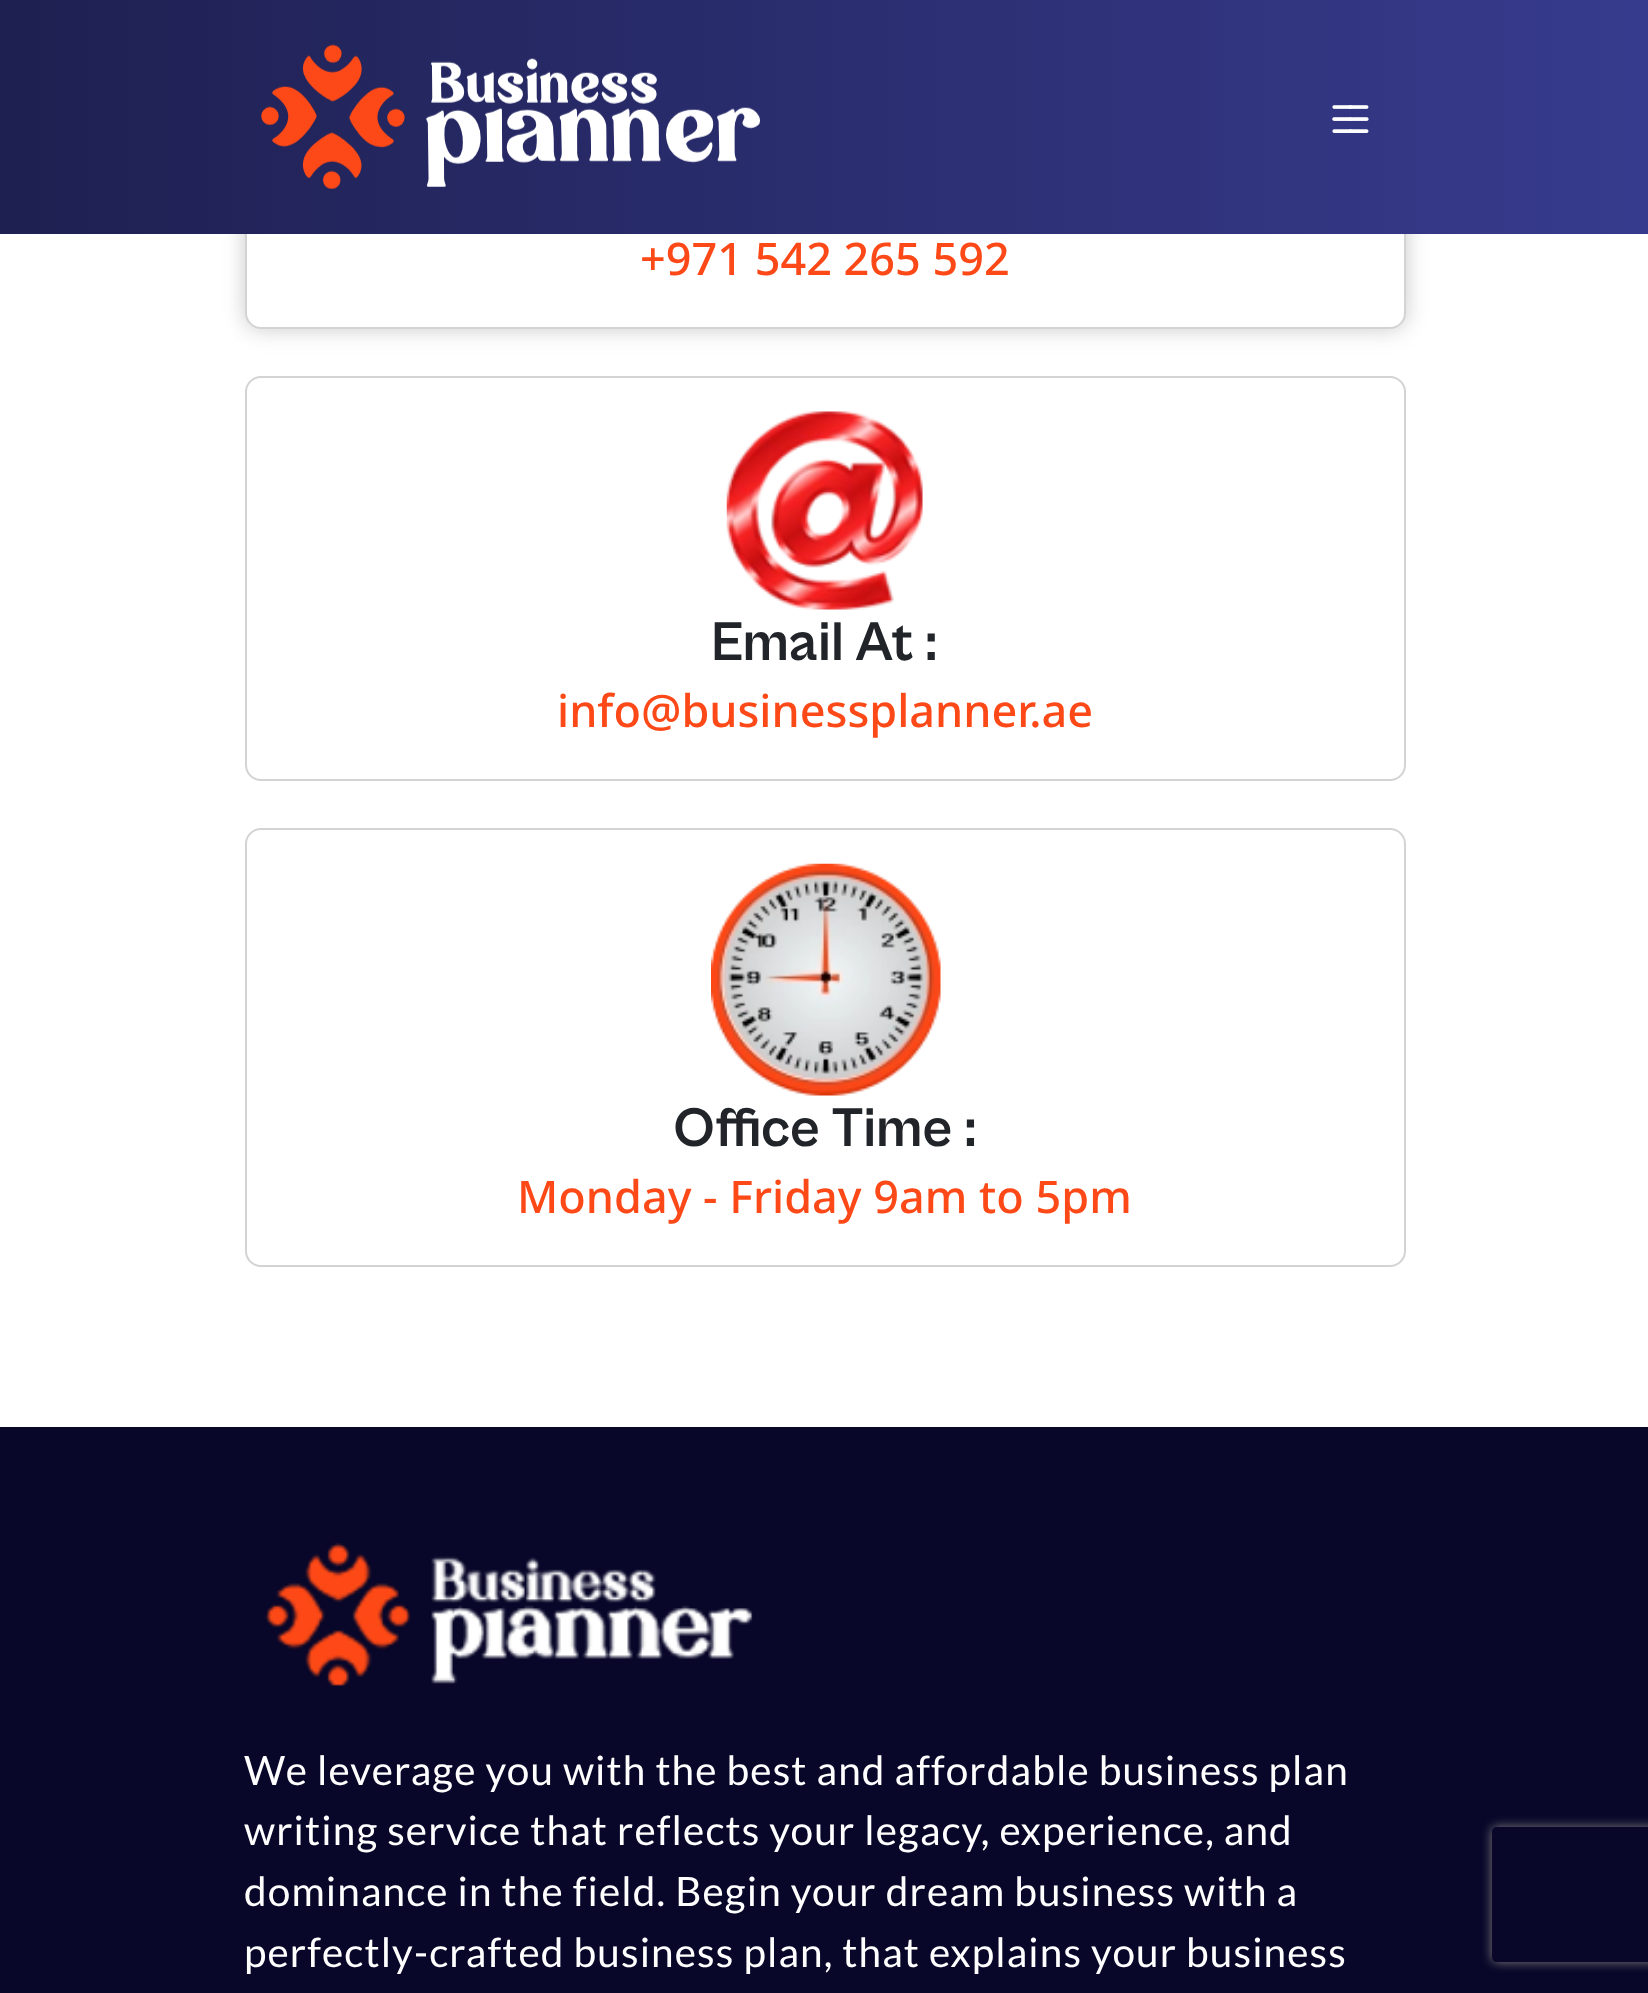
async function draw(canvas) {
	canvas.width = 1648;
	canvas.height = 1993;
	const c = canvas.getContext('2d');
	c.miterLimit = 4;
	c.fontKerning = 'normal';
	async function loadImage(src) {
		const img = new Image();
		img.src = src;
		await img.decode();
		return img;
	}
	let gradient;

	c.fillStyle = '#fff';
	c.fillRect(0, 0, 1648, 1993);
	c.save();
	c.beginPath();
	c.moveTo(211, 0);
	c.lineTo(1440, 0);
	c.lineTo(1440, 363);
	c.lineTo(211, 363);
	c.closePath();
	c.moveTo(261, -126);
	c.lineTo(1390, -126);
	c.bezierCurveTo(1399, -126, 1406, -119, 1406, -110);
	c.lineTo(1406, 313);
	c.bezierCurveTo(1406, 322, 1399, 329, 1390, 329);
	c.lineTo(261, 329);
	c.bezierCurveTo(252, 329, 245, 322, 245, 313);
	c.lineTo(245, -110);
	c.bezierCurveTo(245, -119, 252, -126, 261, -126);
	c.closePath();
	c.clip('evenodd');
	c.fillStyle = '#8080806b';
	c.filter = 'blur(11px)';
	c.beginPath();
	c.roundRect(245, -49, 1161, 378, 16);
	c.fill();
	c.filter = 'none';
	c.restore();
	c.beginPath();
	c.roundRect(246, -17, 1159, 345, 15);
	c.strokeStyle = '#80808059';
	c.lineWidth = 2;
	c.stroke();
	gradient = c.createLinearGradient(0, 117, 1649, 117);
	gradient.addColorStop(0, '#1e2051');
	gradient.addColorStop(1, '#373b8d');
	c.fillStyle = gradient;
	c.fillRect(0, 0, 1648, 234);
	c.drawImage(await loadImage('img1.png'), 261, 44, 499, 145);
	c.drawImage(await loadImage('img2.png'), 1332, 105, 37, 28);
	c.font = '500 45px Noto Sans';
	c.fillStyle = '#fd4917';
	c.fillText('+971 542 265 592', 640, 275);
	c.beginPath();
	c.roundRect(246, 377, 1159, 403, 15);
	c.strokeStyle = '#d3d3d3';
	c.stroke();
	c.drawImage(await loadImage('img3.png'), 726, 411, 197, 199);
	c.font = 'bold 56.25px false';
	c.fillStyle = '#212529';
	c.fillText('Email At :', 711, 660);
	c.font = '500 45px Noto Sans';
	c.fillStyle = '#fd4917';
	c.fillText('info@businessplanner.ae', 557, 727);
	c.beginPath();
	c.roundRect(246, 829, 1159, 437, 15);
	c.stroke();
	c.drawImage(await loadImage('img4.png'), 711, 863, 230, 233);
	c.font = 'bold 56.25px false';
	c.fillStyle = '#212529';
	c.fillText('Office Time :', 673, 1146);
	c.font = '500 45px Noto Sans';
	c.fillStyle = '#fd4917';
	c.fillText('Monday - Friday 9am to 5pm', 517, 1213);
	c.fillStyle = '#080729';
	c.fillRect(0, 1427, 1648, 566);
	c.save();
	c.beginPath();
	c.moveTo(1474, 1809);
	c.lineTo(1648, 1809);
	c.lineTo(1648, 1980);
	c.lineTo(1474, 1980);
	c.closePath();
	c.moveTo(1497, 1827);
	c.lineTo(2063, 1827);
	c.bezierCurveTo(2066, 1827, 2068, 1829, 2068, 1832);
	c.lineTo(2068, 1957);
	c.bezierCurveTo(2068, 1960, 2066, 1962, 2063, 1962);
	c.lineTo(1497, 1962);
	c.bezierCurveTo(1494, 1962, 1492, 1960, 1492, 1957);
	c.lineTo(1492, 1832);
	c.bezierCurveTo(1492, 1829, 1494, 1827, 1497, 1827);
	c.closePath();
	c.clip('evenodd');
	c.fillStyle = '#808080';
	c.filter = 'blur(5.5px)';
	c.beginPath();
	c.roundRect(1492, 1827, 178, 135, 5);
	c.fill();
	c.filter = 'none';
	c.restore();
	c.drawImage(await loadImage('img5.png'), 265, 1542, 488, 144);
	c.letterSpacing = '1.12px';
	c.font = '40.5px Lato';
	c.fillStyle = '#fff';
	for (const [text, x, y] of [
		['We leverage you with the best and affordable business plan', 244, 1785],
		['writing service that reflects your legacy, experience, and', 244, 1845],
		['dominance in the field. Begin your dream business with a', 244, 1906],
		['perfectly-crafted business plan, that explains your business', 244, 1967],
	]) {
		c.fillText(text, x, y);
	}
}

draw(document.querySelector('canvas'));
